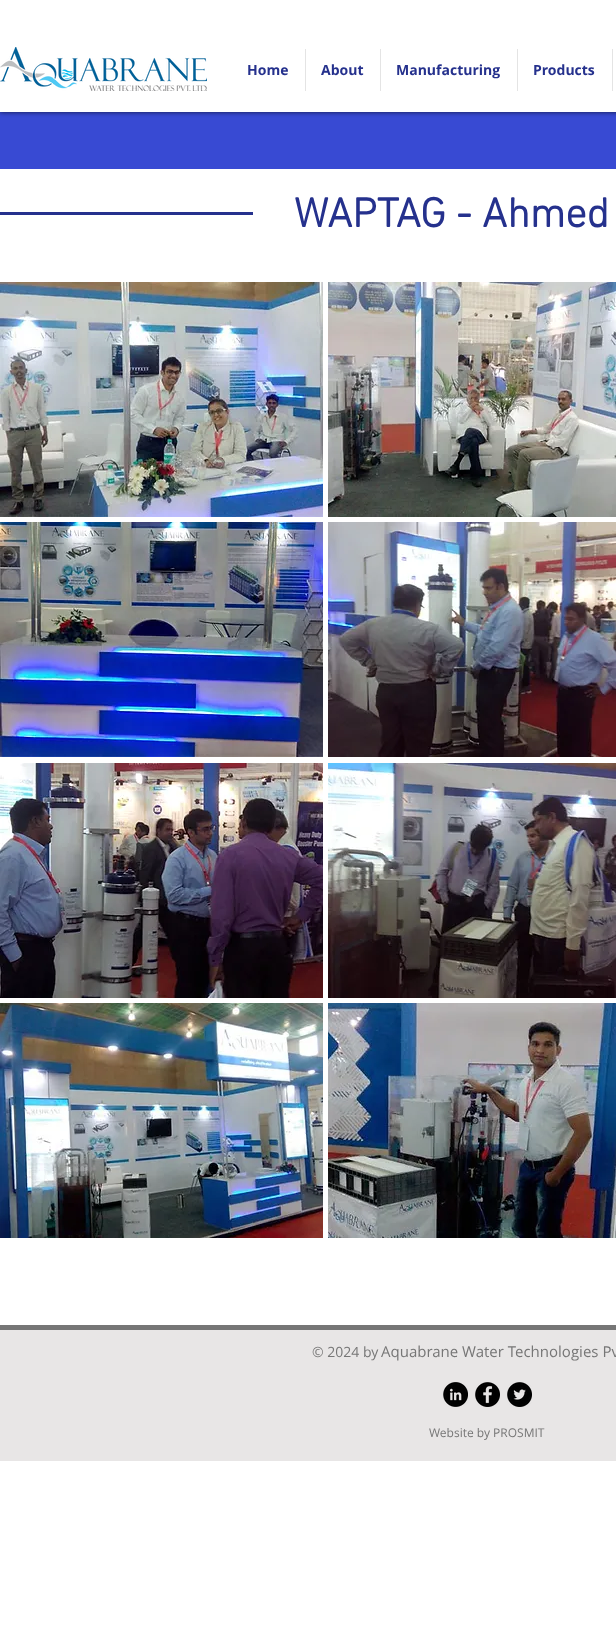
async function draw(canvas) {
	canvas.width = 616;
	canvas.height = 1644;
	const c = canvas.getContext('2d');
	c.miterLimit = 4;
	c.fontKerning = 'normal';
	async function loadImage(src) {
		const img = new Image();
		img.src = src;
		await img.decode();
		return img;
	}

	c.fillStyle = '#fff';
	c.fillRect(0, 0, 616, 1644);
	c.fillStyle = '#384ad3';
	c.fillRect(0, 112, 616, 57);
	c.fillStyle = '#000000b3';
	c.filter = 'blur(2.5px)';
	c.beginPath();
	c.rect(0, 0, 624, 112);
	c.fill();
	c.filter = 'none';
	c.fillStyle = '#fff';
	c.fillRect(0, 0, 616, 112);
	c.drawImage(await loadImage('img1.png'), 0, 47, 207, 44);
	c.font = 'bold 14px Open Sans';
	c.fillStyle = '#25318d';
	c.fillText('Home', 247, 75);
	c.fillStyle = '#e4e4e4';
	c.fillRect(305, 49, 1, 42);
	c.fillStyle = '#25318d';
	c.fillText('About', 321, 75);
	c.fillStyle = '#e4e4e4';
	c.fillRect(380, 49, 1, 42);
	c.fillStyle = '#25318d';
	c.fillText('Manufacturing', 396, 75);
	c.fillStyle = '#e4e4e4';
	c.fillRect(517, 49, 1, 42);
	c.fillStyle = '#25318d';
	c.fillText('Products', 533, 75);
	c.fillStyle = '#e4e4e4';
	c.fillRect(612, 49, 1, 42);
	c.fillStyle = '#25318d';
	c.fillRect(0, 212, 253, 3);
	c.font = 'bold 42px "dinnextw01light"';
	c.fillText('WAPTAG - Ahmed', 294, 227);
	c.drawImage(await loadImage('img2.png'), 0, 282, 323, 235);
	c.drawImage(await loadImage('img3.png'), 328, 282, 288, 235);
	c.drawImage(await loadImage('img4.png'), 0, 522, 323, 235);
	c.drawImage(await loadImage('img5.png'), 328, 522, 288, 235);
	c.drawImage(await loadImage('img6.png'), 0, 763, 323, 235);
	c.drawImage(await loadImage('img7.png'), 328, 763, 288, 235);
	c.drawImage(await loadImage('img8.png'), 0, 1003, 323, 235);
	c.drawImage(await loadImage('img9.png'), 328, 1003, 288, 235);
	c.fillStyle = '#e8e6e6';
	c.fillRect(0, 1330, 616, 131);
	c.fillStyle = '#767676';
	c.fillRect(0, 1325, 616, 5);
	c.font = '14px Open Sans';
	c.fillText('© 2024 by', 312, 1357);
	c.font = '15px Open Sans';
	c.fillText('Aquabrane Water Technologies Pv', 381, 1357);
	c.drawImage(await loadImage('img10.png'), 443, 1382, 25, 25);
	c.drawImage(await loadImage('img11.png'), 475, 1382, 25, 25);
	c.drawImage(await loadImage('img12.png'), 507, 1382, 25, 25);
	c.font = '12px Open Sans';
	c.fillText('Website by PROSMIT', 429, 1437);
}

draw(document.querySelector('canvas'));
